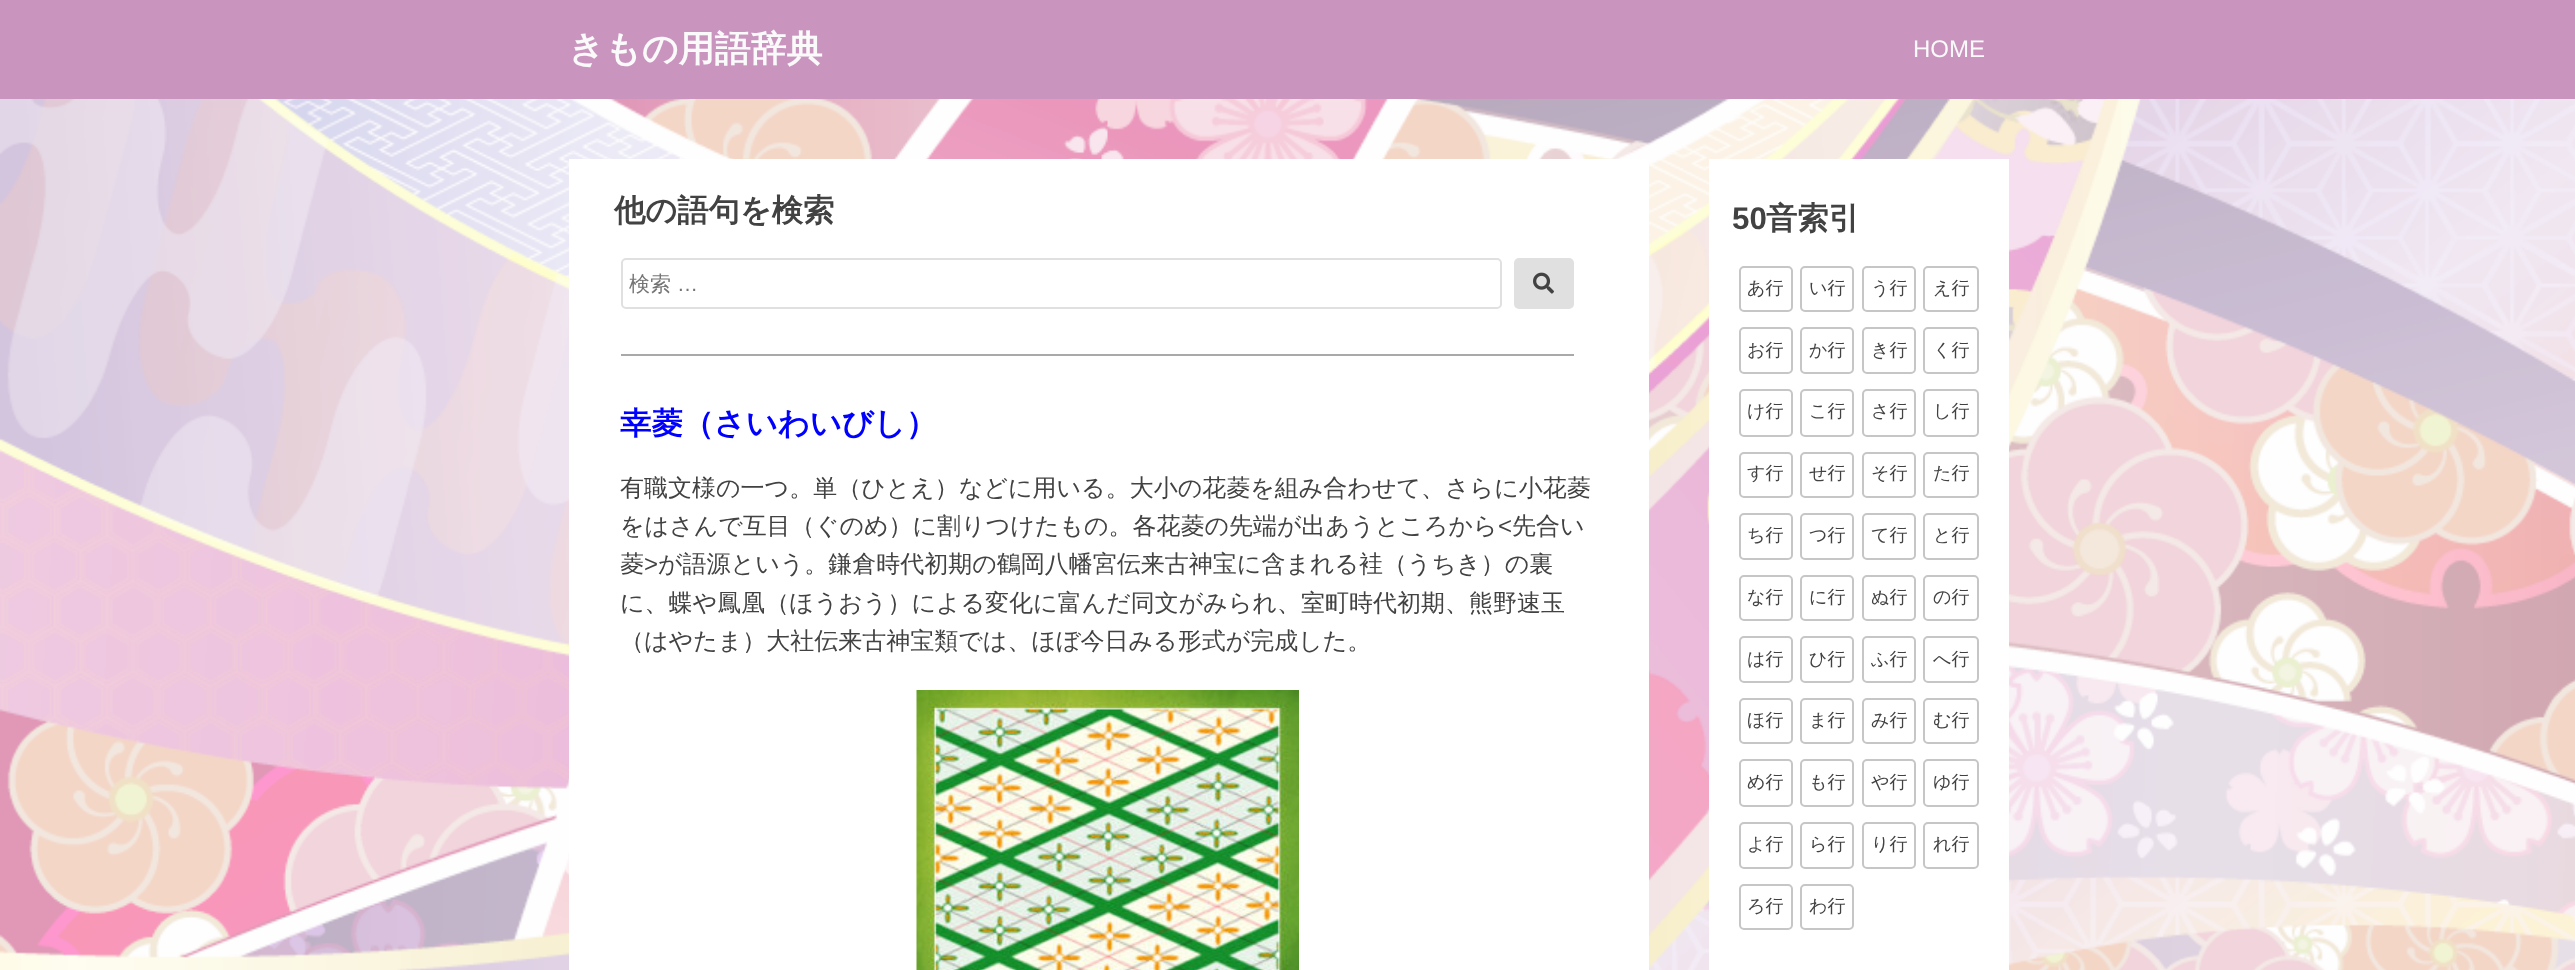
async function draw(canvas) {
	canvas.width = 2575;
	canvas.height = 970;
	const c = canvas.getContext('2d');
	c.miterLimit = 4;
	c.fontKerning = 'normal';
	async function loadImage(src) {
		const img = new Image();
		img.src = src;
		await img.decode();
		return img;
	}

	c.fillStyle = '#fff';
	c.fillRect(0, 0, 2575, 970);
	c.drawImage(await loadImage('img1.png'), 0, 99, 2575, 871);
	c.fillStyle = '#c995bf';
	c.fillRect(0, 0, 2575, 99);
	c.font = 'bold 36px WenQuanYi Zen Hei';
	c.fillStyle = '#fafafa';
	c.fillText('きもの用語辞典', 568, 61);
	c.font = '24px Liberation Sans';
	c.fillText('HOME', 1913, 57);
	c.fillStyle = '#fff';
	c.fillRect(569, 159, 1080, 811);
	c.fillStyle = '#a9a9a9';
	c.fillRect(621, 354, 953, 2);
	c.font = 'bold 31.25px WenQuanYi Zen Hei';
	c.fillStyle = '#424242';
	c.fillText('他の語句を検索', 614, 221);
	c.beginPath();
	c.roundRect(622, 259, 879, 49, 4);
	c.strokeStyle = '#e0e0e0';
	c.lineWidth = 2;
	c.stroke();
	c.font = '500 21px WenQuanYi Zen Hei';
	c.fillStyle = '#757575';
	c.fillText('検索', 629, 291);
	c.font = '21px Liberation Sans';
	c.fillText('…', 677, 291);
	c.fillStyle = '#e0e0e0';
	c.beginPath();
	c.roundRect(1514, 258, 60, 51, 5);
	c.fill();
	c.drawImage(await loadImage('img2.png'), 1533, 272, 21, 22);
	c.font = 'bold 31.25px WenQuanYi Zen Hei';
	c.fillStyle = '#00f';
	c.fillText('幸菱（さいわいびし）', 620, 434);
	c.font = '500 24px WenQuanYi Zen Hei';
	c.fillStyle = '#424242';
	c.fillText('有職文様の一つ。単（ひとえ）などに用いる。大小の花菱を組み合わせて、さらに小花菱', 620, 496);
	c.fillText('をはさんで互目（ぐのめ）に割りつけたもの。各花菱の先端が出あうところから', 620, 534);
	c.font = '24px Liberation Sans';
	c.fillText('<', 1498, 534);
	c.font = '500 24px WenQuanYi Zen Hei';
	c.fillText('先合い', 1512, 534);
	c.fillText('菱', 620, 572);
	c.font = '24px Liberation Sans';
	c.fillText('>', 644, 572);
	c.font = '500 24px WenQuanYi Zen Hei';
	for (const [text, x, y] of [
		['が語源という。鎌倉時代初期の鶴岡八幡宮伝来古神宝に含まれる袿（うちき）の裏', 658, 572],
		['に、蝶や鳳凰（ほうおう）による変化に富んだ同文がみられ、室町時代初期、熊野速玉', 620, 611],
		['（はやたま）大社伝来古神宝類では、ほぼ今日みる形式が完成した。', 620, 649],
	]) {
		c.fillText(text, x, y);
	}
	c.drawImage(await loadImage('img3.png'), 916, 690, 383, 280);
	c.fillStyle = '#fff';
	c.fillRect(1709, 159, 300, 811);
	c.font = 'bold 31.25px Liberation Sans';
	c.fillStyle = '#424242';
	c.fillText('50', 1732, 229);
	c.font = 'bold 31.25px WenQuanYi Zen Hei';
	c.fillText('音索引', 1766, 229);
	c.beginPath();
	c.roundRect(1740, 267, 52, 44, 4);
	c.strokeStyle = '#c6c6c6';
	c.stroke();
	c.font = '500 18px WenQuanYi Zen Hei';
	c.fillText('あ行', 1747, 294);
	c.beginPath();
	c.roundRect(1801, 267, 52, 44, 4);
	c.stroke();
	c.fillText('い行', 1809, 294);
	c.beginPath();
	c.roundRect(1863, 267, 52, 44, 4);
	c.stroke();
	c.fillText('う行', 1871, 294);
	c.beginPath();
	c.roundRect(1924, 267, 54, 44, 4);
	c.stroke();
	c.fillText('え行', 1933, 294);
	c.beginPath();
	c.roundRect(1740, 328, 52, 45, 4);
	c.stroke();
	c.fillText('お行', 1747, 356);
	c.beginPath();
	c.roundRect(1801, 328, 52, 45, 4);
	c.stroke();
	c.fillText('か行', 1809, 356);
	c.beginPath();
	c.roundRect(1863, 328, 52, 45, 4);
	c.stroke();
	c.fillText('き行', 1871, 356);
	c.beginPath();
	c.roundRect(1924, 328, 54, 45, 4);
	c.stroke();
	c.fillText('く行', 1933, 356);
	c.beginPath();
	c.roundRect(1740, 390, 52, 46, 4);
	c.stroke();
	c.fillText('け行', 1747, 417);
	c.beginPath();
	c.roundRect(1801, 390, 52, 46, 4);
	c.stroke();
	c.fillText('こ行', 1809, 417);
	c.beginPath();
	c.roundRect(1863, 390, 52, 46, 4);
	c.stroke();
	c.fillText('さ行', 1871, 417);
	c.beginPath();
	c.roundRect(1924, 390, 54, 46, 4);
	c.stroke();
	c.fillText('し行', 1933, 417);
	c.beginPath();
	c.roundRect(1740, 453, 52, 44, 4);
	c.stroke();
	c.fillText('す行', 1747, 479);
	c.beginPath();
	c.roundRect(1801, 453, 52, 44, 4);
	c.stroke();
	c.fillText('せ行', 1809, 479);
	c.beginPath();
	c.roundRect(1863, 453, 52, 44, 4);
	c.stroke();
	c.fillText('そ行', 1871, 479);
	c.beginPath();
	c.roundRect(1924, 453, 54, 44, 4);
	c.stroke();
	c.fillText('た行', 1933, 479);
	c.beginPath();
	c.roundRect(1740, 514, 52, 45, 4);
	c.stroke();
	c.fillText('ち行', 1747, 541);
	c.beginPath();
	c.roundRect(1801, 514, 52, 45, 4);
	c.stroke();
	c.fillText('つ行', 1809, 541);
	c.beginPath();
	c.roundRect(1863, 514, 52, 45, 4);
	c.stroke();
	c.fillText('て行', 1871, 541);
	c.beginPath();
	c.roundRect(1924, 514, 54, 45, 4);
	c.stroke();
	c.fillText('と行', 1933, 541);
	c.beginPath();
	c.roundRect(1740, 576, 52, 44, 4);
	c.stroke();
	c.fillText('な行', 1747, 603);
	c.beginPath();
	c.roundRect(1801, 576, 52, 44, 4);
	c.stroke();
	c.fillText('に行', 1809, 603);
	c.beginPath();
	c.roundRect(1863, 576, 52, 44, 4);
	c.stroke();
	c.fillText('ぬ行', 1871, 603);
	c.beginPath();
	c.roundRect(1924, 576, 54, 44, 4);
	c.stroke();
	c.fillText('の行', 1933, 603);
	c.beginPath();
	c.roundRect(1740, 637, 52, 45, 4);
	c.stroke();
	c.fillText('は行', 1747, 665);
	c.beginPath();
	c.roundRect(1801, 637, 52, 45, 4);
	c.stroke();
	c.fillText('ひ行', 1809, 665);
	c.beginPath();
	c.roundRect(1863, 637, 52, 45, 4);
	c.stroke();
	c.fillText('ふ行', 1871, 665);
	c.beginPath();
	c.roundRect(1924, 637, 54, 45, 4);
	c.stroke();
	c.fillText('へ行', 1933, 665);
	c.beginPath();
	c.roundRect(1740, 699, 52, 44, 4);
	c.stroke();
	c.fillText('ほ行', 1747, 726);
	c.beginPath();
	c.roundRect(1801, 699, 52, 44, 4);
	c.stroke();
	c.fillText('ま行', 1809, 726);
	c.beginPath();
	c.roundRect(1863, 699, 52, 44, 4);
	c.stroke();
	c.fillText('み行', 1871, 726);
	c.beginPath();
	c.roundRect(1924, 699, 54, 44, 4);
	c.stroke();
	c.fillText('む行', 1933, 726);
	c.beginPath();
	c.roundRect(1740, 760, 52, 46, 4);
	c.stroke();
	c.fillText('め行', 1747, 788);
	c.beginPath();
	c.roundRect(1801, 760, 52, 46, 4);
	c.stroke();
	c.fillText('も行', 1809, 788);
	c.beginPath();
	c.roundRect(1863, 760, 52, 46, 4);
	c.stroke();
	c.fillText('や行', 1871, 788);
	c.beginPath();
	c.roundRect(1924, 760, 54, 46, 4);
	c.stroke();
	c.fillText('ゆ行', 1933, 788);
	c.beginPath();
	c.roundRect(1740, 823, 52, 45, 4);
	c.stroke();
	c.fillText('よ行', 1747, 850);
	c.beginPath();
	c.roundRect(1801, 823, 52, 45, 4);
	c.stroke();
	c.fillText('ら行', 1809, 850);
	c.beginPath();
	c.roundRect(1863, 823, 52, 45, 4);
	c.stroke();
	c.fillText('り行', 1871, 850);
	c.beginPath();
	c.roundRect(1924, 823, 54, 45, 4);
	c.stroke();
	c.fillText('れ行', 1933, 850);
	c.beginPath();
	c.roundRect(1740, 885, 52, 44, 4);
	c.stroke();
	c.fillText('ろ行', 1747, 912);
	c.beginPath();
	c.roundRect(1801, 885, 52, 44, 4);
	c.stroke();
	c.fillText('わ行', 1809, 912);
}

draw(document.querySelector('canvas'));
